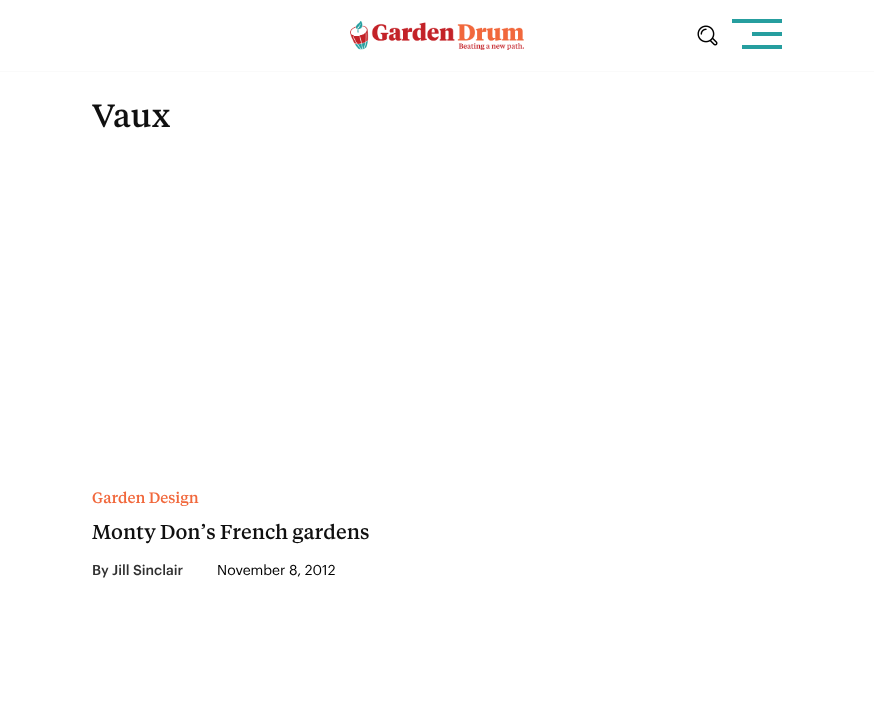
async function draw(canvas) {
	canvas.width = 874;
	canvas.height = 706;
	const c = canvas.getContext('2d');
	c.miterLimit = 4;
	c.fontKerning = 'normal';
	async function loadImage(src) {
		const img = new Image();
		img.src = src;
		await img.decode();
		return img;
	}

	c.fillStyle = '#fff';
	c.fillRect(0, 0, 874, 706);
	c.drawImage(await loadImage('img1.png'), 350, 21, 174, 29);
	c.drawImage(await loadImage('img2.png'), 697, 25, 21, 21);
	for (const [x, y, w, h, color] of [
		[752, 32, 30, 4, '#269e9f'],
		[732, 19, 50, 4, '#269e9f'],
		[742, 45, 40, 4, '#269e9f'],
		[0, 71, 874, 1, '#fafafa'],
	]) {
		c.fillStyle = color;
		c.fillRect(x, y, w, h);
	}
	c.font = '500 32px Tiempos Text';
	c.fillStyle = '#101010';
	c.fillText('Vaux', 92, 127);
	c.font = '500 15px Tiempos Text';
	c.fillStyle = '#f1683c';
	c.fillText('Garden Design', 92, 503);
	c.font = '500 20px Tiempos Text';
	c.fillStyle = '#101010';
	c.fillText('Monty Don’s French gardens', 92, 539);
	c.font = '500 14px Graphik';
	c.fillStyle = '#313131';
	c.fillText('By Jill Sinclair', 92, 575);
	c.font = 'italic 14px Graphik';
	c.fillStyle = '#000';
	c.fillText('November 8, 2012', 217, 575);
}

draw(document.querySelector('canvas'));
